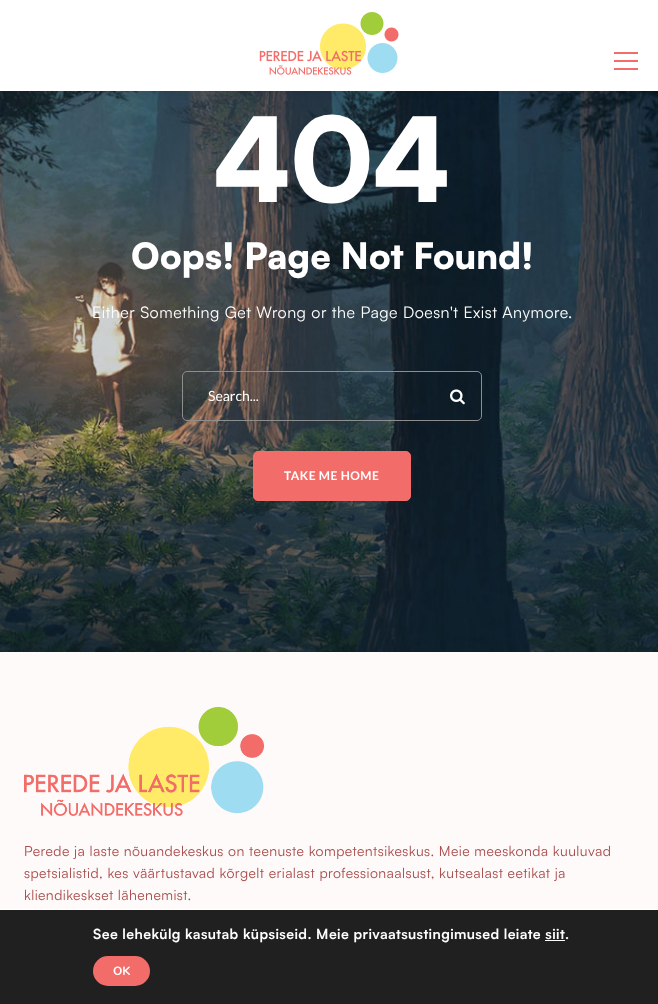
async function draw(canvas) {
	canvas.width = 658;
	canvas.height = 1004;
	const c = canvas.getContext('2d');
	c.miterLimit = 4;
	c.fontKerning = 'normal';
	async function loadImage(src) {
		const img = new Image();
		img.src = src;
		await img.decode();
		return img;
	}

	c.fillStyle = '#fffafa';
	c.fillRect(0, 0, 658, 1004);
	c.drawImage(await loadImage('img2.png'), 0, 91, 658, 561);
	c.fillStyle = '#0000001a';
	c.filter = 'blur(5px)';
	c.beginPath();
	c.rect(1, 0, 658, 91);
	c.fill();
	c.filter = 'none';
	c.fillStyle = '#fff';
	c.fillRect(0, 0, 658, 91);
	c.drawImage(await loadImage('img1.png'), 259, 12, 140, 63);
	for (const [x, y, w, h, color] of [
		[614, 60, 24, 2, '#f26d69'],
		[614, 52, 24, 2, '#f26d69'],
		[614, 68, 24, 2, '#f26d69'],
	]) {
		c.fillStyle = color;
		c.fillRect(x, y, w, h);
	}
	c.font = '900 116px Satoshi';
	c.fillStyle = '#fff';
	c.fillText('404', 214, 202);
	c.font = '900 36px Satoshi';
	c.fillText('Oops! Page Not Found!', 131, 269);
	c.letterSpacing = '0.48px';
	c.font = '16px Satoshi';
	c.fillText('Either Something Get Wrong or the Page Doesn\'t Exist Anymore.', 92, 318);
	c.beginPath();
	c.roundRect(182.5, 371.5, 299, 49, 4.5);
	c.strokeStyle = '#8c8f8e';
	c.stroke();
	c.letterSpacing = '0px';
	c.font = '14px Lato';
	c.fillText('Search...', 208, 401);
	c.drawImage(await loadImage('img3.png'), 450, 389, 15, 16);
	c.fillStyle = '#f26d69';
	c.beginPath();
	c.roundRect(253.5, 451.5, 157, 49, 4.5);
	c.fill();
	c.strokeStyle = '#f26d69';
	c.stroke();
	c.letterSpacing = '0.5px';
	c.font = 'bold 12px Lato';
	c.fillStyle = '#fff';
	c.fillText('TAKE ME HOME', 284, 480);
	c.drawImage(await loadImage('img4.png'), 24, 706, 240, 110);
	c.letterSpacing = '0.42px';
	c.font = '14px Satoshi';
	c.fillStyle = '#a94c4a';
	for (const [text, x, y] of [
		['Perede ja laste nõuandekeskus on teenuste kompetentsikeskus. Meie meeskonda kuuluvad', 24, 856],
		['spetsialistid, kes väärtustavad kõrgelt erialast professionaalsust, kutsealast eetikat ja', 24, 878],
		['kliendikeskset lähenemist.', 24, 900],
	]) {
		c.fillText(text, x, y);
	}
	c.fillStyle = '#202020';
	c.fillRect(0, 910, 658, 94);
	c.fillStyle = '#fff';
	c.fillRect(0, 909, 658, 1);
	c.font = 'bold 14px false';
	c.fillText('See lehekülg kasutab küpsiseid. Meie privaatsustingimused leiate siit', 93, 939);
	c.fillText('.', 565, 939);
	c.fillRect(545, 940, 20, 1);
	c.fillStyle = '#f26d69';
	c.beginPath();
	c.roundRect(93, 956, 57, 30, 15);
	c.fill();
	c.letterSpacing = '0px';
	c.font = 'bold 12px Nunito';
	c.fillStyle = '#fff';
	c.fillText('OK', 113, 975);
}

draw(document.querySelector('canvas'));
